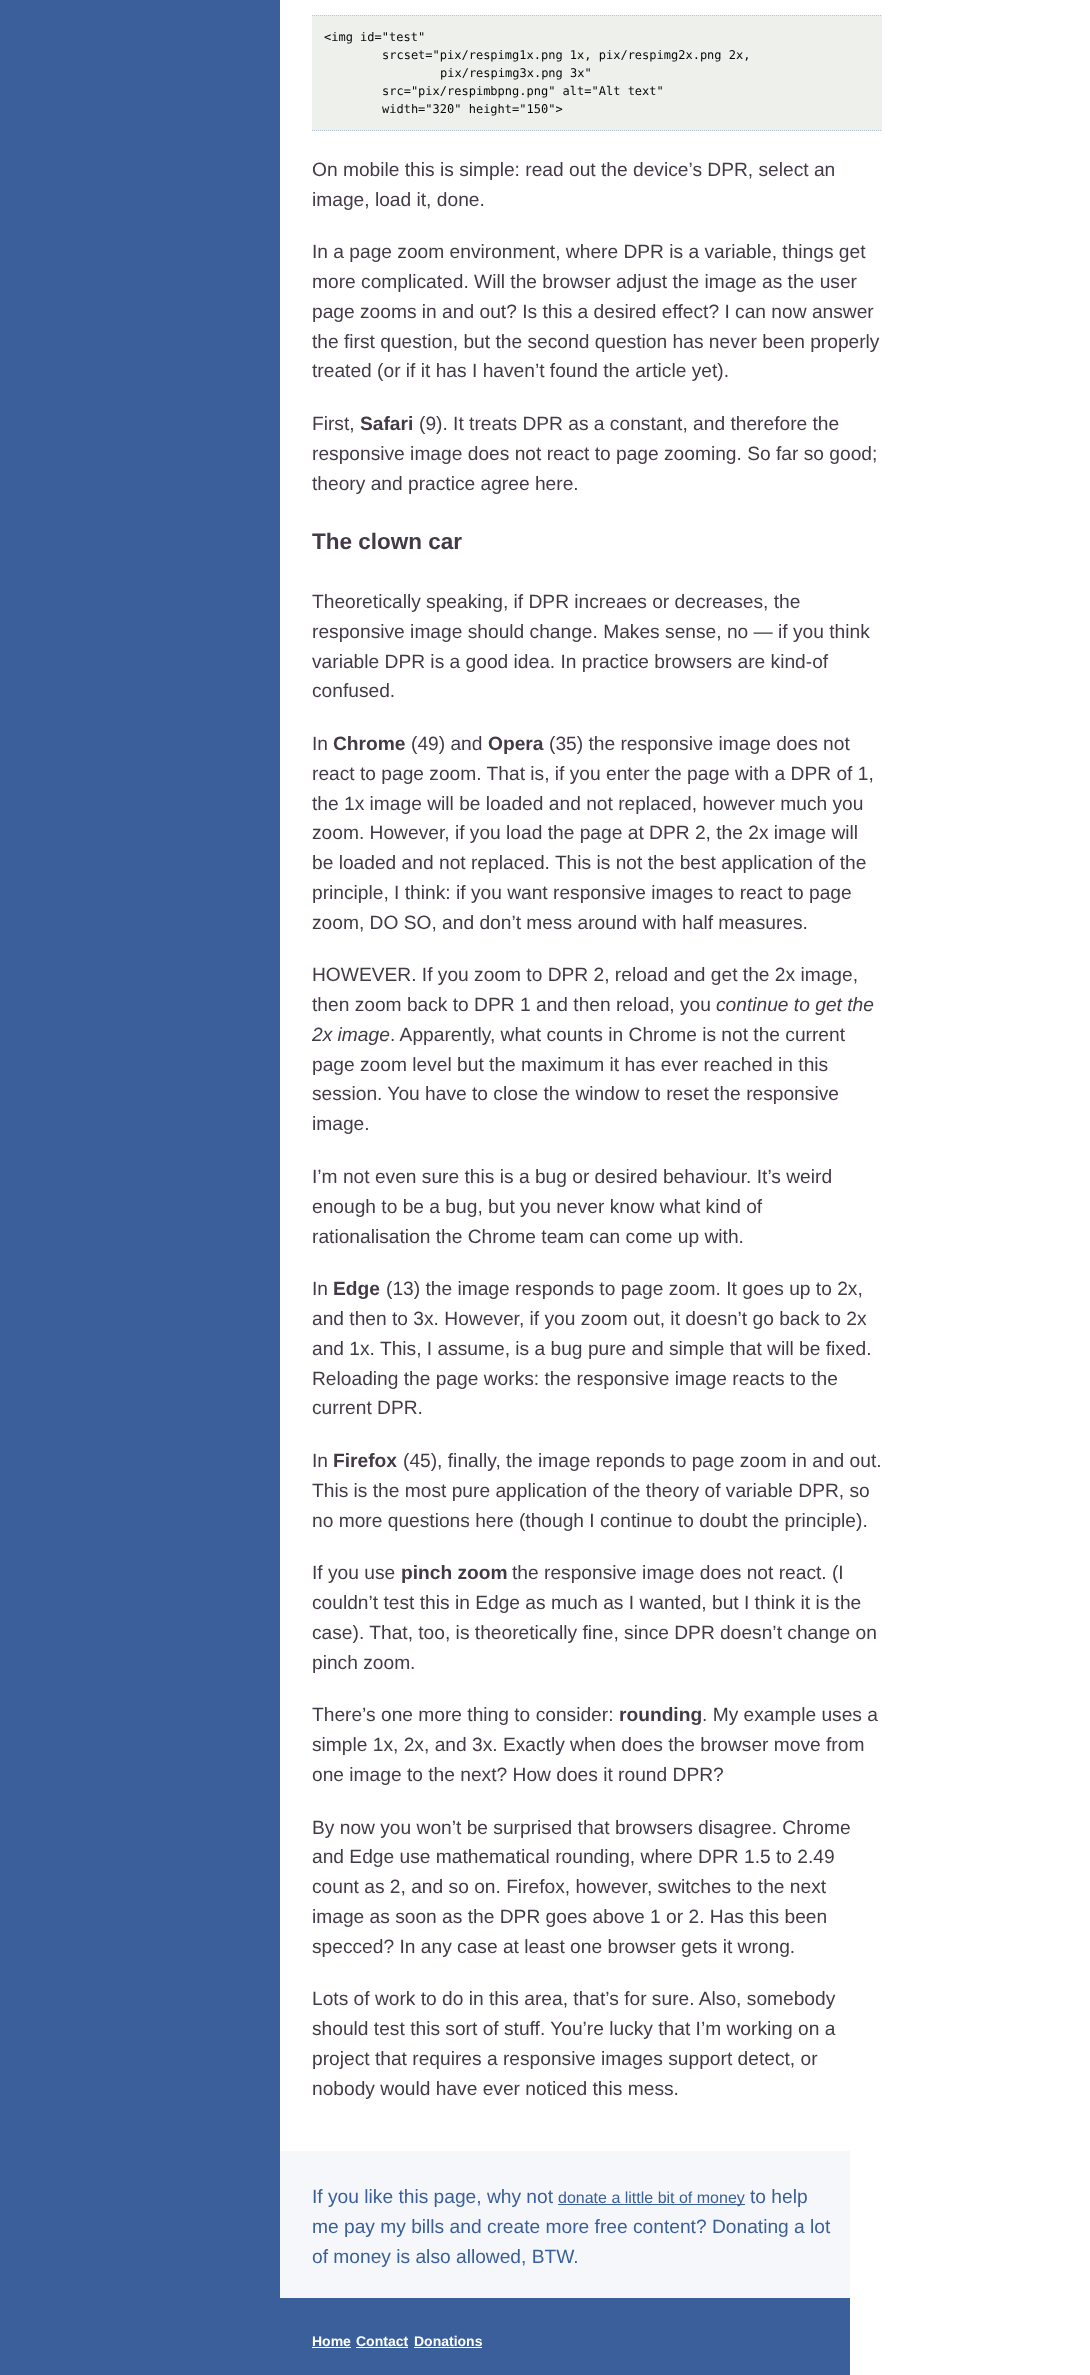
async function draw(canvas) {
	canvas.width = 1090;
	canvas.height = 2375;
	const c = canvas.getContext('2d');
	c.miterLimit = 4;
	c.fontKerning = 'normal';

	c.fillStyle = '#fff';
	c.fillRect(0, 0, 1090, 2375);
	c.fillStyle = '#3a5f9a';
	c.fillRect(0, 0, 280, 2375);
	c.fillStyle = '#eef0eb';
	c.fillRect(312, 15, 570, 116);
	c.beginPath();
	c.moveTo(312, 15.5);
	c.lineTo(882, 15.5);
	c.strokeStyle = '#b7c4d3';
	c.setLineDash([1, 1]);
	c.stroke();
	c.beginPath();
	c.moveTo(312, 130.5);
	c.lineTo(882, 130.5);
	c.stroke();
	c.font = '12px DejaVu Sans Mono';
	c.fillStyle = '#070707';
	for (const [text, x, y] of [
		['<img id="test"', 324, 41],
		['srcset="pix/respimg1x.png 1x, pix/respimg2x.png 2x,', 382, 59],
		['pix/respimg3x.png 3x"', 440, 77],
		['src="pix/respimbpng.png" alt="Alt text"', 382, 95],
		['width="320" height="150">', 382, 113],
	]) {
		c.fillText(text, x, y);
	}
	c.font = '19.2px Liberation Sans';
	c.fillStyle = '#443a47';
	for (const [text, x, y] of [
		['On mobile this is simple: read out the device’s DPR, select an', 312, 176],
		['image, load it, done.', 312, 206],
		['In a page zoom environment, where DPR is a variable, things get', 312, 258],
		['more complicated. Will the browser adjust the image as the user', 312, 288],
		['page zooms in and out? Is this a desired effect? I can now answer', 312, 318],
		['the first question, but the second question has never been properly', 312, 348],
		['treated (or if it has I haven’t found the article yet).', 312, 377],
		['First,', 312, 430],
	]) {
		c.fillText(text, x, y);
	}
	c.font = 'bold 19.2px Liberation Sans';
	c.fillText('Safari', 360, 430);
	c.font = '19.2px Liberation Sans';
	for (const [text, x, y] of [
		['(9). It treats DPR as a constant, and therefore the', 419, 430],
		['responsive image does not react to page zooming. So far so good;', 312, 460],
		['theory and practice agree here.', 312, 490],
	]) {
		c.fillText(text, x, y);
	}
	c.font = 'bold 22.5px Liberation Sans';
	c.fillText('The clown car', 312, 549);
	c.font = '19.2px Liberation Sans';
	for (const [text, x, y] of [
		['Theoretically speaking, if DPR increaes or decreases, the', 312, 608],
		['responsive image should change. Makes sense, no — if you think', 312, 638],
		['variable DPR is a good idea. In practice browsers are kind-of', 312, 668],
		['confused.', 312, 697],
		['In', 312, 750],
	]) {
		c.fillText(text, x, y);
	}
	c.font = 'bold 19.2px Liberation Sans';
	c.fillText('Chrome', 333, 750);
	c.font = '19.2px Liberation Sans';
	c.fillText('(49) and', 411, 750);
	c.font = 'bold 19.2px Liberation Sans';
	c.fillText('Opera', 488, 750);
	c.font = '19.2px Liberation Sans';
	for (const [text, x, y] of [
		['(35) the responsive image does not', 549, 750],
		['react to page zoom. That is, if you enter the page with a DPR of 1,', 312, 780],
		['the 1x image will be loaded and not replaced, however much you', 312, 810],
		['zoom. However, if you load the page at DPR 2, the 2x image will', 312, 839],
		['be loaded and not replaced. This is not the best application of the', 312, 869],
		['principle, I think: if you want responsive images to react to page', 312, 899],
		['zoom, DO SO, and don’t mess around with half measures.', 312, 929],
		['HOWEVER. If you zoom to DPR 2, reload and get the 2x image,', 312, 981],
		['then zoom back to DPR 1 and then reload, you', 312, 1011],
	]) {
		c.fillText(text, x, y);
	}
	c.font = 'italic 19.2px Liberation Sans';
	c.fillText('continue to get the', 716, 1011);
	c.fillText('2x image', 312, 1041);
	c.font = '19.2px Liberation Sans';
	for (const [text, x, y] of [
		['. Apparently, what counts in Chrome is not the current', 390, 1041],
		['page zoom level but the maximum it has ever reached in this', 312, 1071],
		['session. You have to close the window to reset the responsive', 312, 1100],
		['image.', 312, 1130],
		['I’m not even sure this is a bug or desired behaviour. It’s weird', 312, 1183],
		['enough to be a bug, but you never know what kind of', 312, 1213],
		['rationalisation the Chrome team can come up with.', 312, 1243],
		['In', 312, 1295],
	]) {
		c.fillText(text, x, y);
	}
	c.font = 'bold 19.2px Liberation Sans';
	c.fillText('Edge', 333, 1295);
	c.font = '19.2px Liberation Sans';
	for (const [text, x, y] of [
		['(13) the image responds to page zoom. It goes up to 2x,', 386, 1295],
		['and then to 3x. However, if you zoom out, it doesn’t go back to 2x', 312, 1325],
		['and 1x. This, I assume, is a bug pure and simple that will be fixed.', 312, 1355],
		['Reloading the page works: the responsive image reacts to the', 312, 1385],
		['current DPR.', 312, 1414],
		['In', 312, 1467],
	]) {
		c.fillText(text, x, y);
	}
	c.font = 'bold 19.2px Liberation Sans';
	c.fillText('Firefox', 333, 1467);
	c.font = '19.2px Liberation Sans';
	for (const [text, x, y] of [
		['(45), finally, the image reponds to page zoom in and out.', 403, 1467],
		['This is the most pure application of the theory of variable DPR, so', 312, 1497],
		['no more questions here (though I continue to doubt the principle).', 312, 1527],
		['If you use', 312, 1579],
	]) {
		c.fillText(text, x, y);
	}
	c.font = 'bold 19.2px Liberation Sans';
	c.fillText('pinch zoom', 401, 1579);
	c.font = '19.2px Liberation Sans';
	for (const [text, x, y] of [
		['the responsive image does not react. (I', 512, 1579],
		['couldn’t test this in Edge as much as I wanted, but I think it is the', 312, 1609],
		['case). That, too, is theoretically fine, since DPR doesn’t change on', 312, 1639],
		['pinch zoom.', 312, 1669],
		['There’s one more thing to consider:', 312, 1721],
	]) {
		c.fillText(text, x, y);
	}
	c.font = 'bold 19.2px Liberation Sans';
	c.fillText('rounding', 619, 1721);
	c.font = '19.2px Liberation Sans';
	for (const [text, x, y] of [
		['. My example uses a', 702, 1721],
		['simple 1x, 2x, and 3x. Exactly when does the browser move from', 312, 1751],
		['one image to the next? How does it round DPR?', 312, 1781],
		['By now you won’t be surprised that browsers disagree. Chrome', 312, 1834],
		['and Edge use mathematical rounding, where DPR 1.5 to 2.49', 312, 1863],
		['count as 2, and so on. Firefox, however, switches to the next', 312, 1893],
		['image as soon as the DPR goes above 1 or 2. Has this been', 312, 1923],
		['specced? In any case at least one browser gets it wrong.', 312, 1953],
		['Lots of work to do in this area, that’s for sure. Also, somebody', 312, 2005],
		['should test this sort of stuff. You’re lucky that I’m working on a', 312, 2035],
		['project that requires a responsive images support detect, or', 312, 2065],
		['nobody would have ever noticed this mess.', 312, 2095],
	]) {
		c.fillText(text, x, y);
	}
	c.fillStyle = '#f5f7fa';
	c.fillRect(280, 2151, 570, 147);
	c.fillStyle = '#3a5f9a';
	c.fillText('If you like this page, why not', 312, 2203);
	c.fillRect(558, 2204, 187, 1);
	c.font = '16px Liberation Sans';
	c.fillText('donate a little bit of money', 558, 2203);
	c.font = '19.2px Liberation Sans';
	for (const [text, x, y] of [
		['to help', 750, 2203],
		['me pay my bills and create more free content? Donating a lot', 312, 2233],
		['of money is also allowed, BTW.', 312, 2263],
	]) {
		c.fillText(text, x, y);
	}
	c.fillRect(280, 2298, 570, 77);
	c.font = 'bold 14px Liberation Sans';
	c.fillStyle = '#fff';
	c.fillText('Home', 312, 2346);
	c.fillRect(312, 2347, 39, 1);
	c.fillText('Contact', 356, 2346);
	c.fillRect(356, 2347, 52, 1);
	c.fillText('Donations', 414, 2346);
	c.fillRect(414, 2347, 68, 1);
}

draw(document.querySelector('canvas'));
